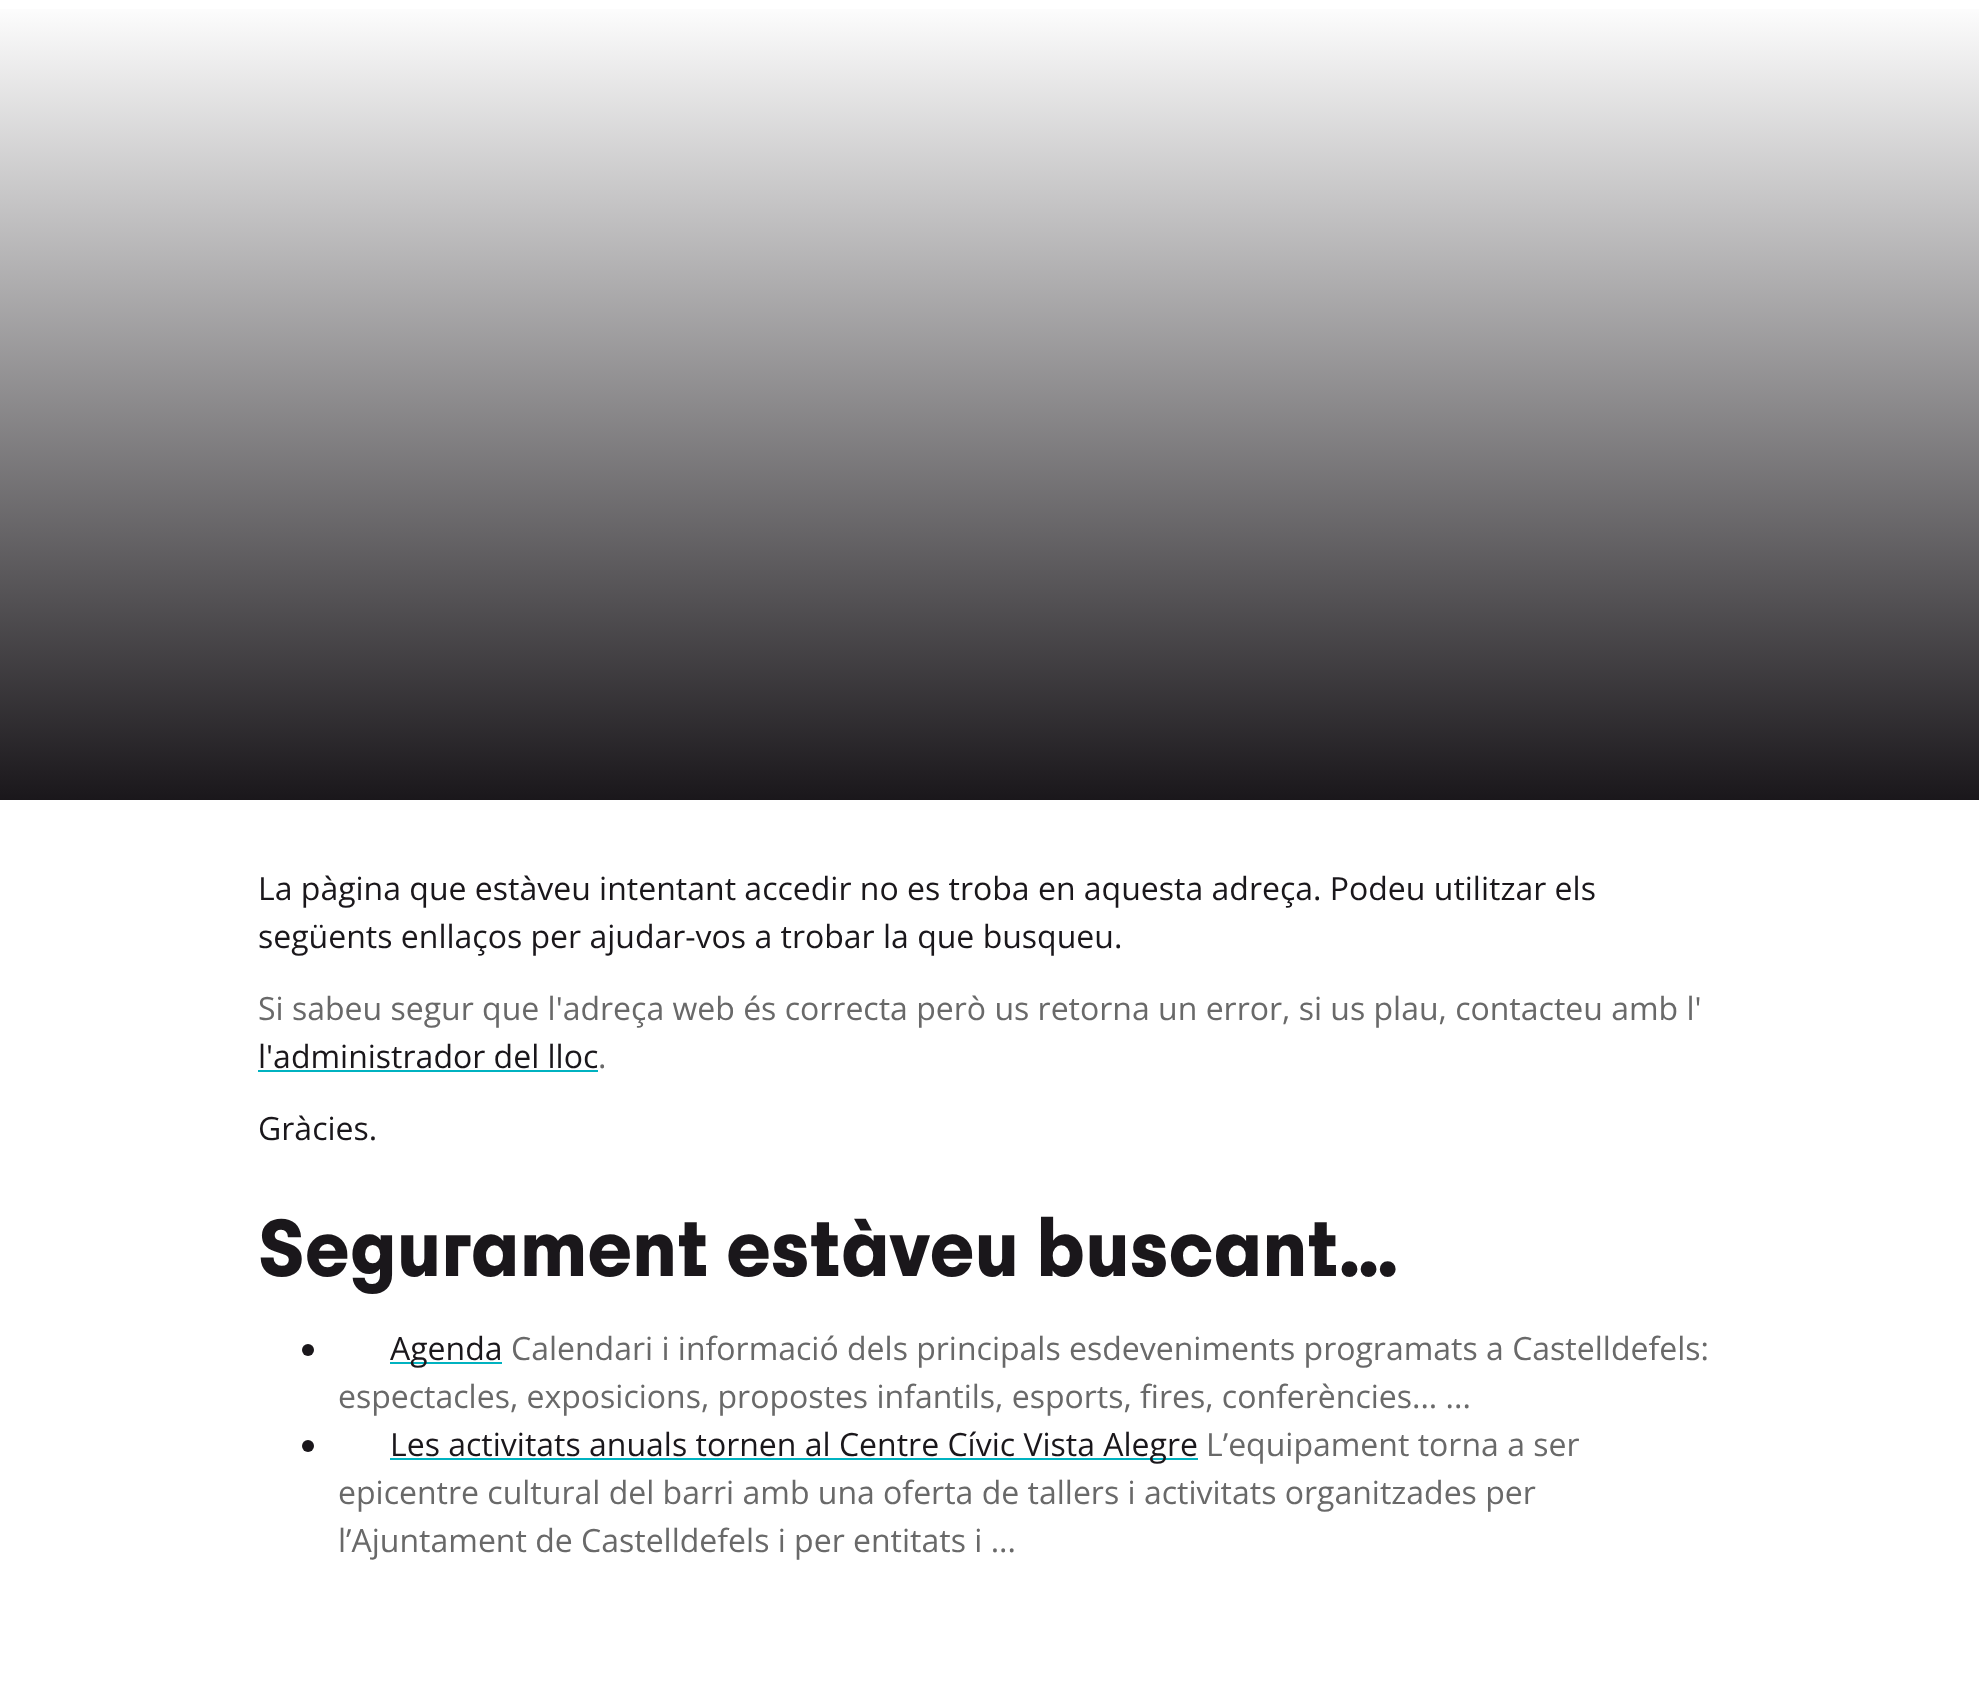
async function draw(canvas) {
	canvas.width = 1979;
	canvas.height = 1707;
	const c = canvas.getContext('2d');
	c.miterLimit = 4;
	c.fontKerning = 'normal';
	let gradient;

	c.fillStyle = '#fff';
	c.fillRect(0, 0, 1979, 1707);
	gradient = c.createLinearGradient(990, 0, 990, 800);
	gradient.addColorStop(0, '#fff');
	gradient.addColorStop(1, '#1a171b');
	c.fillStyle = gradient;
	c.fillRect(0, 9, 1979, 791);
	c.font = '32px Open Sans';
	c.fillStyle = '#1a171b';
	c.fillText('La pàgina que estàveu intentant accedir no es troba en aquesta adreça. Podeu utilitzar els', 258, 900);
	c.fillText('següents enllaços per ajudar-vos a trobar la que busqueu.', 258, 948);
	c.fillStyle = '#696969';
	c.fillText('Si sabeu segur que l\'adreça web és correcta però us retorna un error, si us plau, contacteu amb l\'', 258, 1020);
	c.fillStyle = '#1a171b';
	c.fillText('l\'administrador del lloc', 258, 1068);
	c.fillStyle = '#00b2c0';
	c.fillRect(258, 1070, 340, 2);
	c.fillStyle = '#696969';
	c.fillText('.', 598, 1068);
	c.fillStyle = '#1a171b';
	c.fillText('Gràcies.', 258, 1140);
	c.font = 'bold 80px "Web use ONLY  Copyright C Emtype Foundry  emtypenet"';
	c.fillText('Segurament estàveu buscant…', 258, 1276);
	c.beginPath();
	c.arc(308, 1350, 6, 0, 2 * Math.PI);
	c.fill();
	c.fillStyle = '#00b2c0';
	c.fillRect(390, 1362, 112, 2);
	c.font = '32px Open Sans';
	c.fillStyle = '#1a171b';
	c.fillText('Agenda', 390, 1360);
	c.fillStyle = '#696969';
	c.fillText('Calendari i informació dels principals esdeveniments programats a Castelldefels:', 511, 1360);
	c.fillText('espectacles, exposicions, propostes infantils, esports, fires, conferències... ...', 338, 1408);
	c.fillStyle = '#1a171b';
	c.beginPath();
	c.arc(308, 1446, 6, 0, 2 * Math.PI);
	c.fill();
	c.fillStyle = '#00b2c0';
	c.fillRect(390, 1458, 808, 2);
	c.fillStyle = '#1a171b';
	c.fillText('Les activitats anuals tornen al Centre Cívic Vista Alegre', 390, 1456);
	c.fillStyle = '#696969';
	for (const [text, x, y] of [
		['L’equipament torna a ser', 1206, 1456],
		['epicentre cultural del barri amb una oferta de tallers i activitats organitzades per', 338, 1504],
		['l’Ajuntament de Castelldefels i per entitats i ...', 338, 1552],
	]) {
		c.fillText(text, x, y);
	}
}

draw(document.querySelector('canvas'));
